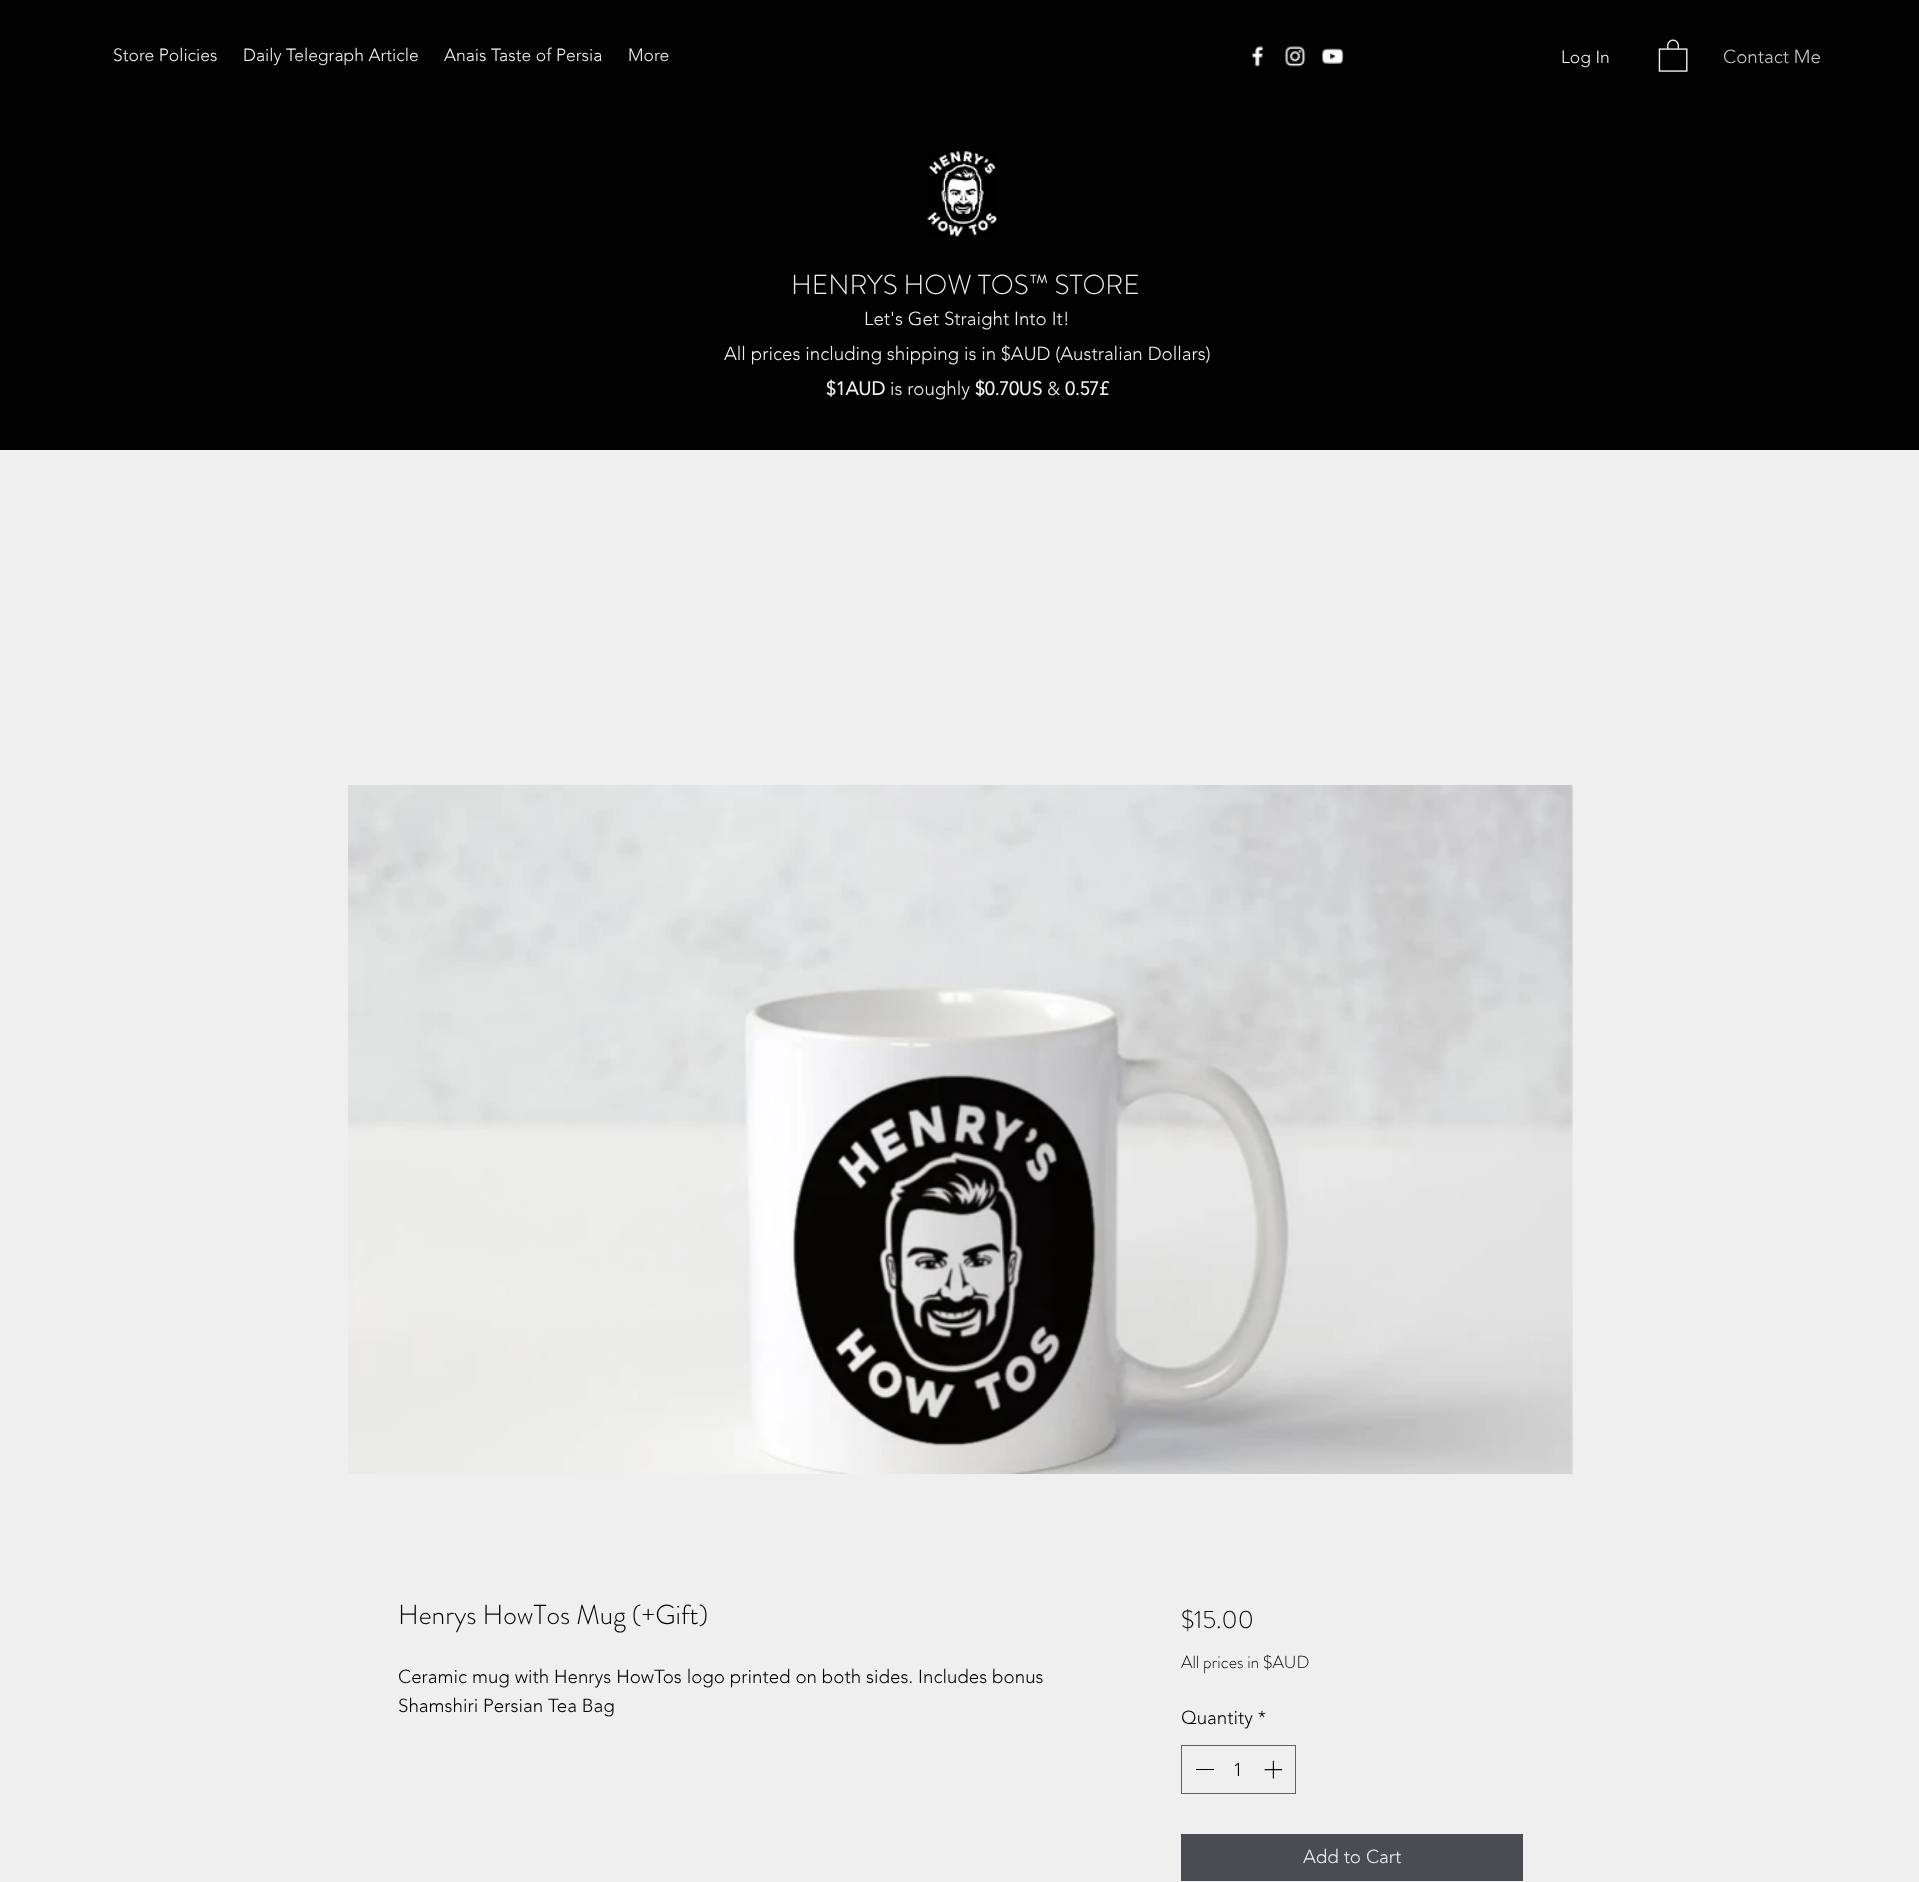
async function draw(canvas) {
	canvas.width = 1919;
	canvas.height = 1882;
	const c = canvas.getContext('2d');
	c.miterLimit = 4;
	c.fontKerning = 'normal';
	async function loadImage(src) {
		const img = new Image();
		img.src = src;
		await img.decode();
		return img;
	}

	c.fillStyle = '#efefef';
	c.fillRect(0, 0, 1919, 1882);
	c.fillStyle = '#020202';
	c.fillRect(0, 0, 1919, 450);
	c.font = '300 17.5px "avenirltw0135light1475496"';
	c.fillStyle = '#efefef';
	for (const [text, x, y] of [
		['Store Policies', 113, 61],
		['Daily Telegraph Article', 243, 61],
		['Anais Taste of Persia', 444, 61],
		['More', 628, 61],
	]) {
		c.fillText(text, x, y);
	}
	c.drawImage(await loadImage('img1.png'), 1252, 46, 12, 21);
	c.drawImage(await loadImage('img2.png'), 1284, 46, 22, 21);
	c.drawImage(await loadImage('img3.png'), 1321, 48, 23, 16);
	c.fillText('Log In', 1561, 63);
	c.drawImage(await loadImage('img4.png'), 1658, 39, 30, 33);
	c.font = '300 18.75px "avenirltw0135light1475496"';
	c.fillStyle = '#cfc5c3';
	c.fillText('Contact Me', 1723, 63);
	c.drawImage(await loadImage('img5.png'), 927, 151, 70, 86);
	c.font = '300 27.5px "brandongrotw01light"';
	c.fillStyle = '#efefef';
	c.fillText('HENRYS HOW TOS™ STORE', 791, 294);
	c.font = '300 18.75px "avenirltw0135light1475496"';
	c.fillText('Let\'s Get Straight Into It!', 864, 325);
	c.fillText('All prices including shipping is in $AUD (Australian Dollars)', 724, 360);
	c.font = 'bold 18.75px "avenirltw0135light1475496"';
	c.fillText('$1AUD', 826, 395);
	c.font = '300 18.75px "avenirltw0135light1475496"';
	c.fillText('is roughly', 890, 395);
	c.font = 'bold 18.75px "avenirltw0135light1475496"';
	c.fillText('$0.70US', 975, 395);
	c.font = '300 18.75px "avenirltw0135light1475496"';
	c.fillText('&', 1047, 395);
	c.font = 'bold 18.75px "avenirltw0135light1475496"';
	c.fillText('0.57£', 1065, 395);
	c.drawImage(await loadImage('img6.png'), 348, 785, 1225, 689);
	c.font = '300 27.5px "brandongrotw01light"';
	c.fillStyle = '#020202';
	c.fillText('Henrys HowTos Mug (+Gift)', 398, 1624);
	c.font = '300 18.75px "avenirltw0135light1475496"';
	c.fillText('Ceramic mug with Henrys HowTos logo printed on both sides. Includes bonus', 398, 1683);
	c.fillText('Shamshiri Persian Tea Bag', 398, 1712);
	c.font = '300 25px "brandongrotw01light"';
	c.fillText('$15.00', 1181, 1628);
	c.font = '300 17.5px "brandongrotw01light"';
	c.fillText('All prices in $AUD', 1181, 1668);
	c.font = '300 18.75px "avenirltw0135light1475496"';
	c.fillText('Quantity *', 1181, 1724);
	c.strokeStyle = '#616161';
	c.strokeRect(1181.5, 1745.5, 114, 48);
	c.fillRect(1196, 1769, 18, 1);
	c.fillText('1', 1233, 1776);
	c.drawImage(await loadImage('img7.png'), 1264, 1760, 19, 19);
	c.fillStyle = '#4a4c52';
	c.fillRect(1181, 1834, 342, 47);
	c.fillStyle = '#efefef';
	c.fillText('Add to Cart', 1303, 1863);
}

draw(document.querySelector('canvas'));
